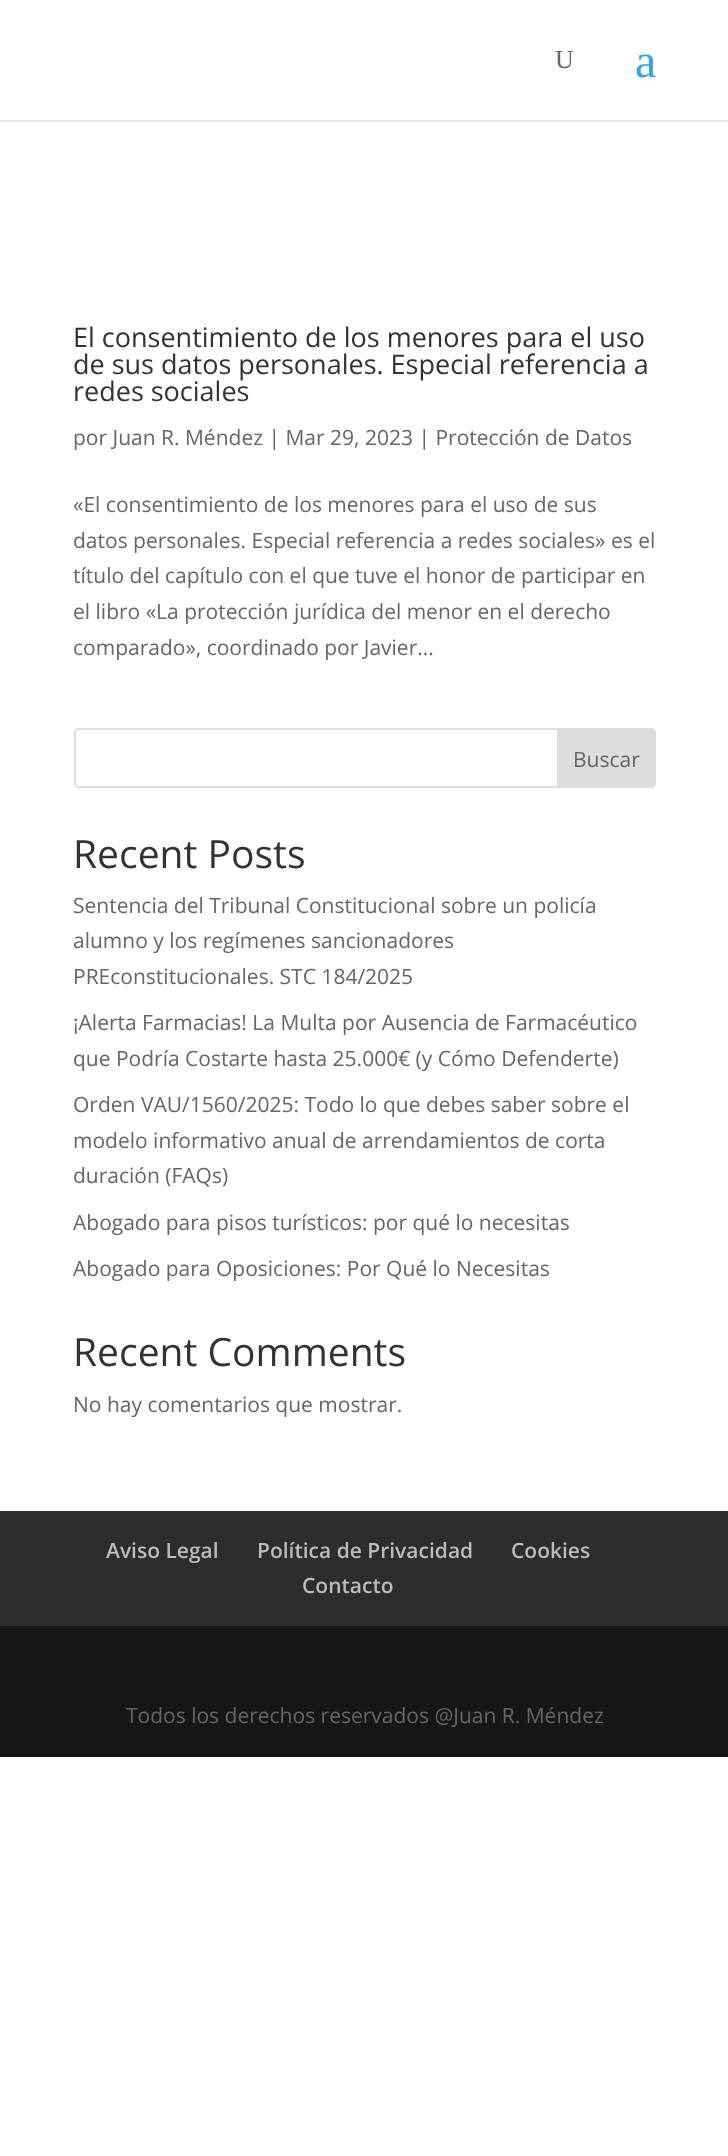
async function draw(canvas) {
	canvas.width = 728;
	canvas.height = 2156;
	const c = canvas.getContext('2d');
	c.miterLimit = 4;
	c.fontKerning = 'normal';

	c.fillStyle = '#fff';
	c.fillRect(0, 0, 728, 2156);
	c.fillStyle = '#e6e6e6';
	c.fillRect(0, 120, 728, 2);
	c.font = '26px Liberation Serif';
	c.fillStyle = '#666';
	c.fillText('U', 555, 68);
	c.font = '48px Liberation Serif';
	c.fillStyle = '#2ea3f2';
	c.fillText('a', 635, 77);
	c.font = '27px Open Sans';
	c.fillStyle = '#333';
	for (const [text, x, y] of [
		['El consentimiento de los menores para el uso', 73, 347],
		['de sus datos personales. Especial referencia a', 73, 374],
		['redes sociales', 73, 401],
	]) {
		c.fillText(text, x, y);
	}
	c.font = '21px Open Sans';
	c.fillStyle = '#666';
	for (const [text, x, y] of [
		['por Juan R. Méndez | Mar 29, 2023 | Protección de Datos', 73, 445],
		['«El consentimiento de los menores para el uso de sus', 73, 512],
		['datos personales. Especial referencia a redes sociales» es el', 73, 548],
		['título del capítulo con el que tuve el honor de participar en', 73, 583],
		['el libro «La protección jurídica del menor en el derecho', 73, 619],
		['comparado», coordinado por Javier...', 73, 655],
	]) {
		c.fillText(text, x, y);
	}
	c.beginPath();
	c.roundRect(75, 729, 580, 58, 4);
	c.strokeStyle = '#ddd';
	c.lineWidth = 2;
	c.stroke();
	c.fillStyle = '#ddd';
	c.beginPath();
	c.roundRect(558, 729, 97, 58, [0, 4, 4, 0]);
	c.fill();
	c.stroke();
	c.fillStyle = '#666';
	c.fillText('Buscar', 573, 767);
	c.font = '39px Open Sans';
	c.fillStyle = '#333';
	c.fillText('Recent Posts', 73, 868);
	c.font = '21px Open Sans';
	c.fillStyle = '#666';
	for (const [text, x, y] of [
		['Sentencia del Tribunal Constitucional sobre un policía', 73, 913],
		['alumno y los regímenes sancionadores', 73, 948],
		['PREconstitucionales. STC 184/2025', 73, 984],
		['¡Alerta Farmacias! La Multa por Ausencia de Farmacéutico', 73, 1030],
		['que Podría Costarte hasta 25.000€ (y Cómo Defenderte)', 73, 1066],
		['Orden VAU/1560/2025: Todo lo que debes saber sobre el', 73, 1112],
		['modelo informativo anual de arrendamientos de corta', 73, 1148],
		['duración (FAQs)', 73, 1183],
		['Abogado para pisos turísticos: por qué lo necesitas', 73, 1230],
		['Abogado para Oposiciones: Por Qué lo Necesitas', 73, 1276],
	]) {
		c.fillText(text, x, y);
	}
	c.font = '39px Open Sans';
	c.fillStyle = '#333';
	c.fillText('Recent Comments', 73, 1366);
	c.font = '21px Open Sans';
	c.fillStyle = '#666';
	c.fillText('No hay comentarios que mostrar.', 73, 1412);
	c.fillStyle = '#2d2d2d';
	c.fillRect(0, 1511, 728, 115);
	c.font = '600 21px Open Sans';
	c.fillStyle = '#bbb';
	for (const [text, x, y] of [
		['Aviso Legal', 106, 1558],
		['Política de Privacidad', 257, 1558],
		['Cookies', 511, 1558],
		['Contacto', 302, 1593],
	]) {
		c.fillText(text, x, y);
	}
	c.fillStyle = '#171717';
	c.fillRect(0, 1626, 728, 131);
	c.font = '21px Open Sans';
	c.fillStyle = '#666';
	c.fillText('Todos los derechos reservados @Juan R. Méndez', 126, 1723);
}

draw(document.querySelector('canvas'));
